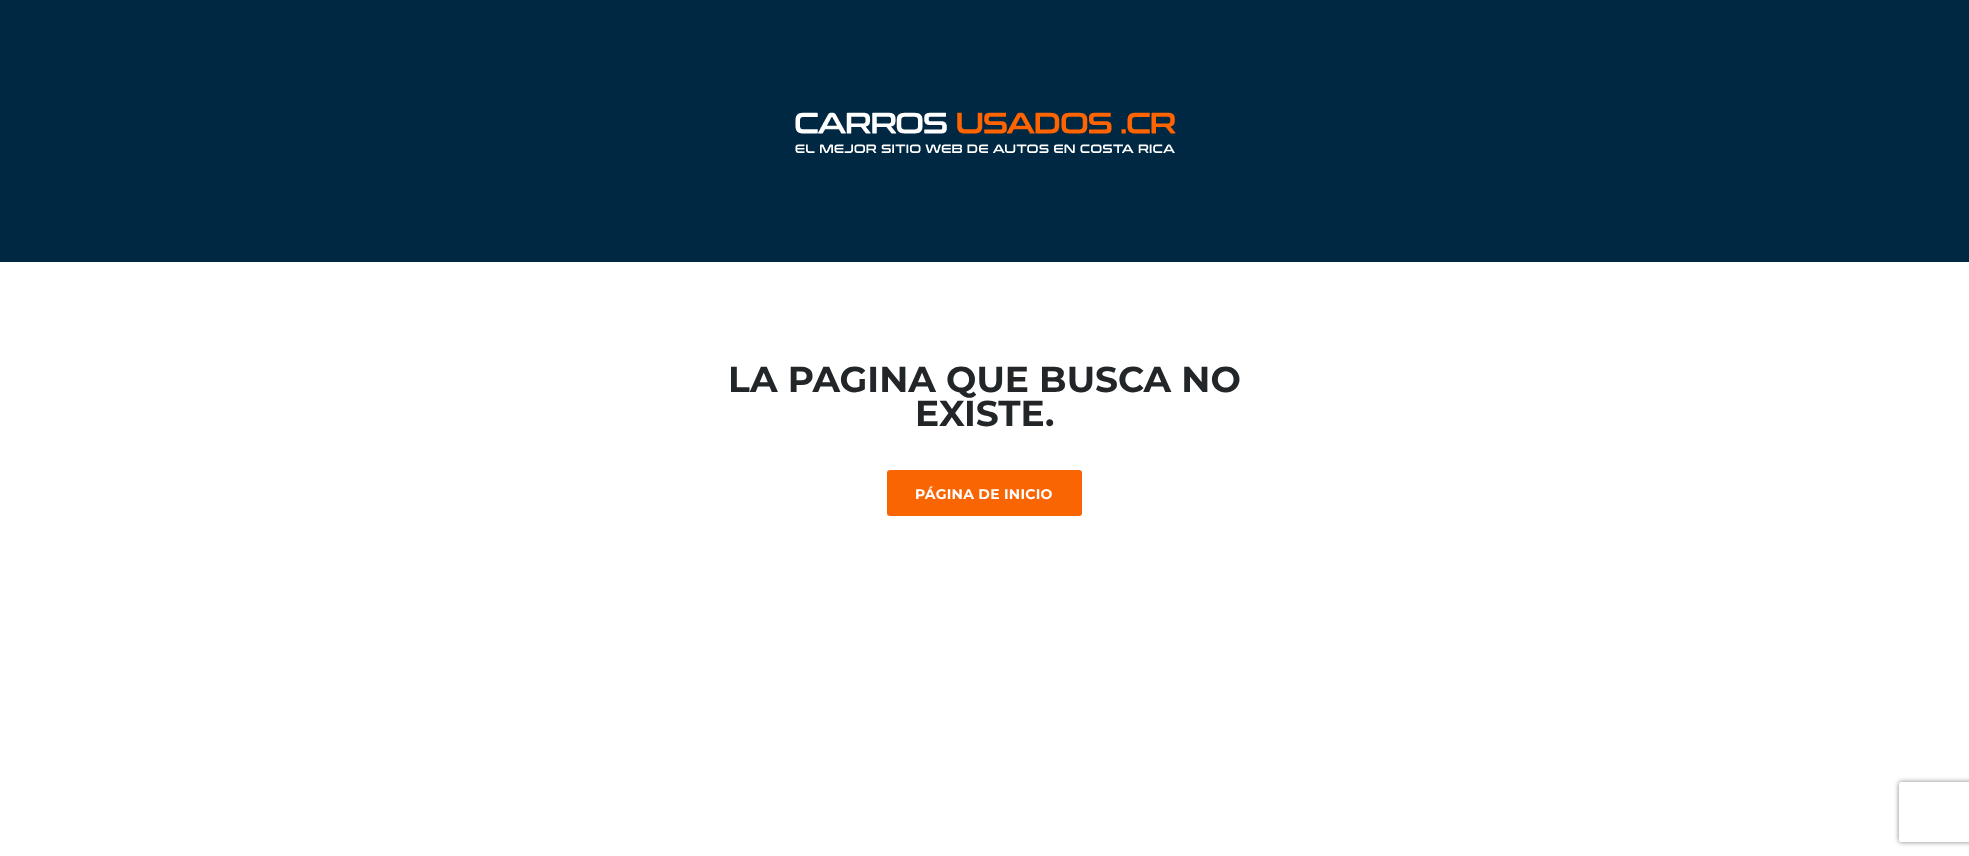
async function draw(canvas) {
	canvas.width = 1969;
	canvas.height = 856;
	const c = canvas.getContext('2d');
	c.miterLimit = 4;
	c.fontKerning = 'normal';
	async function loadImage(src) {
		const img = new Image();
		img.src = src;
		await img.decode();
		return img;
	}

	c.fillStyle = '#fff';
	c.fillRect(0, 0, 1969, 856);
	c.fillStyle = '#002842';
	c.fillRect(0, 0, 1969, 262);
	c.drawImage(await loadImage('img1.png'), 795, 112, 381, 41);
	c.font = 'bold 36px Montserrat';
	c.fillStyle = '#232628';
	c.fillText('LA PAGINA QUE BUSCA NO', 728, 392);
	c.fillText('EXISTE.', 915, 426);
	c.fillStyle = '#fa6503';
	c.beginPath();
	c.roundRect(887, 470, 195, 46, 3);
	c.fill();
	c.letterSpacing = '0.25px';
	c.font = 'bold 14px Montserrat';
	c.fillStyle = '#fff';
	c.fillText('PÁGINA DE INICIO', 915, 499);
	c.save();
	c.beginPath();
	c.moveTo(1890, 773);
	c.lineTo(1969, 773);
	c.lineTo(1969, 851);
	c.lineTo(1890, 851);
	c.closePath();
	c.moveTo(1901, 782);
	c.lineTo(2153, 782);
	c.bezierCurveTo(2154, 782, 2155, 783, 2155, 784);
	c.lineTo(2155, 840);
	c.bezierCurveTo(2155, 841, 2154, 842, 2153, 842);
	c.lineTo(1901, 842);
	c.bezierCurveTo(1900, 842, 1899, 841, 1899, 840);
	c.lineTo(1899, 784);
	c.bezierCurveTo(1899, 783, 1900, 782, 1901, 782);
	c.closePath();
	c.clip('evenodd');
	c.fillStyle = '#808080';
	c.filter = 'blur(2.5px)';
	c.beginPath();
	c.roundRect(1899, 782, 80, 60, 2);
	c.fill();
	c.filter = 'none';
	c.restore();
}

draw(document.querySelector('canvas'));
